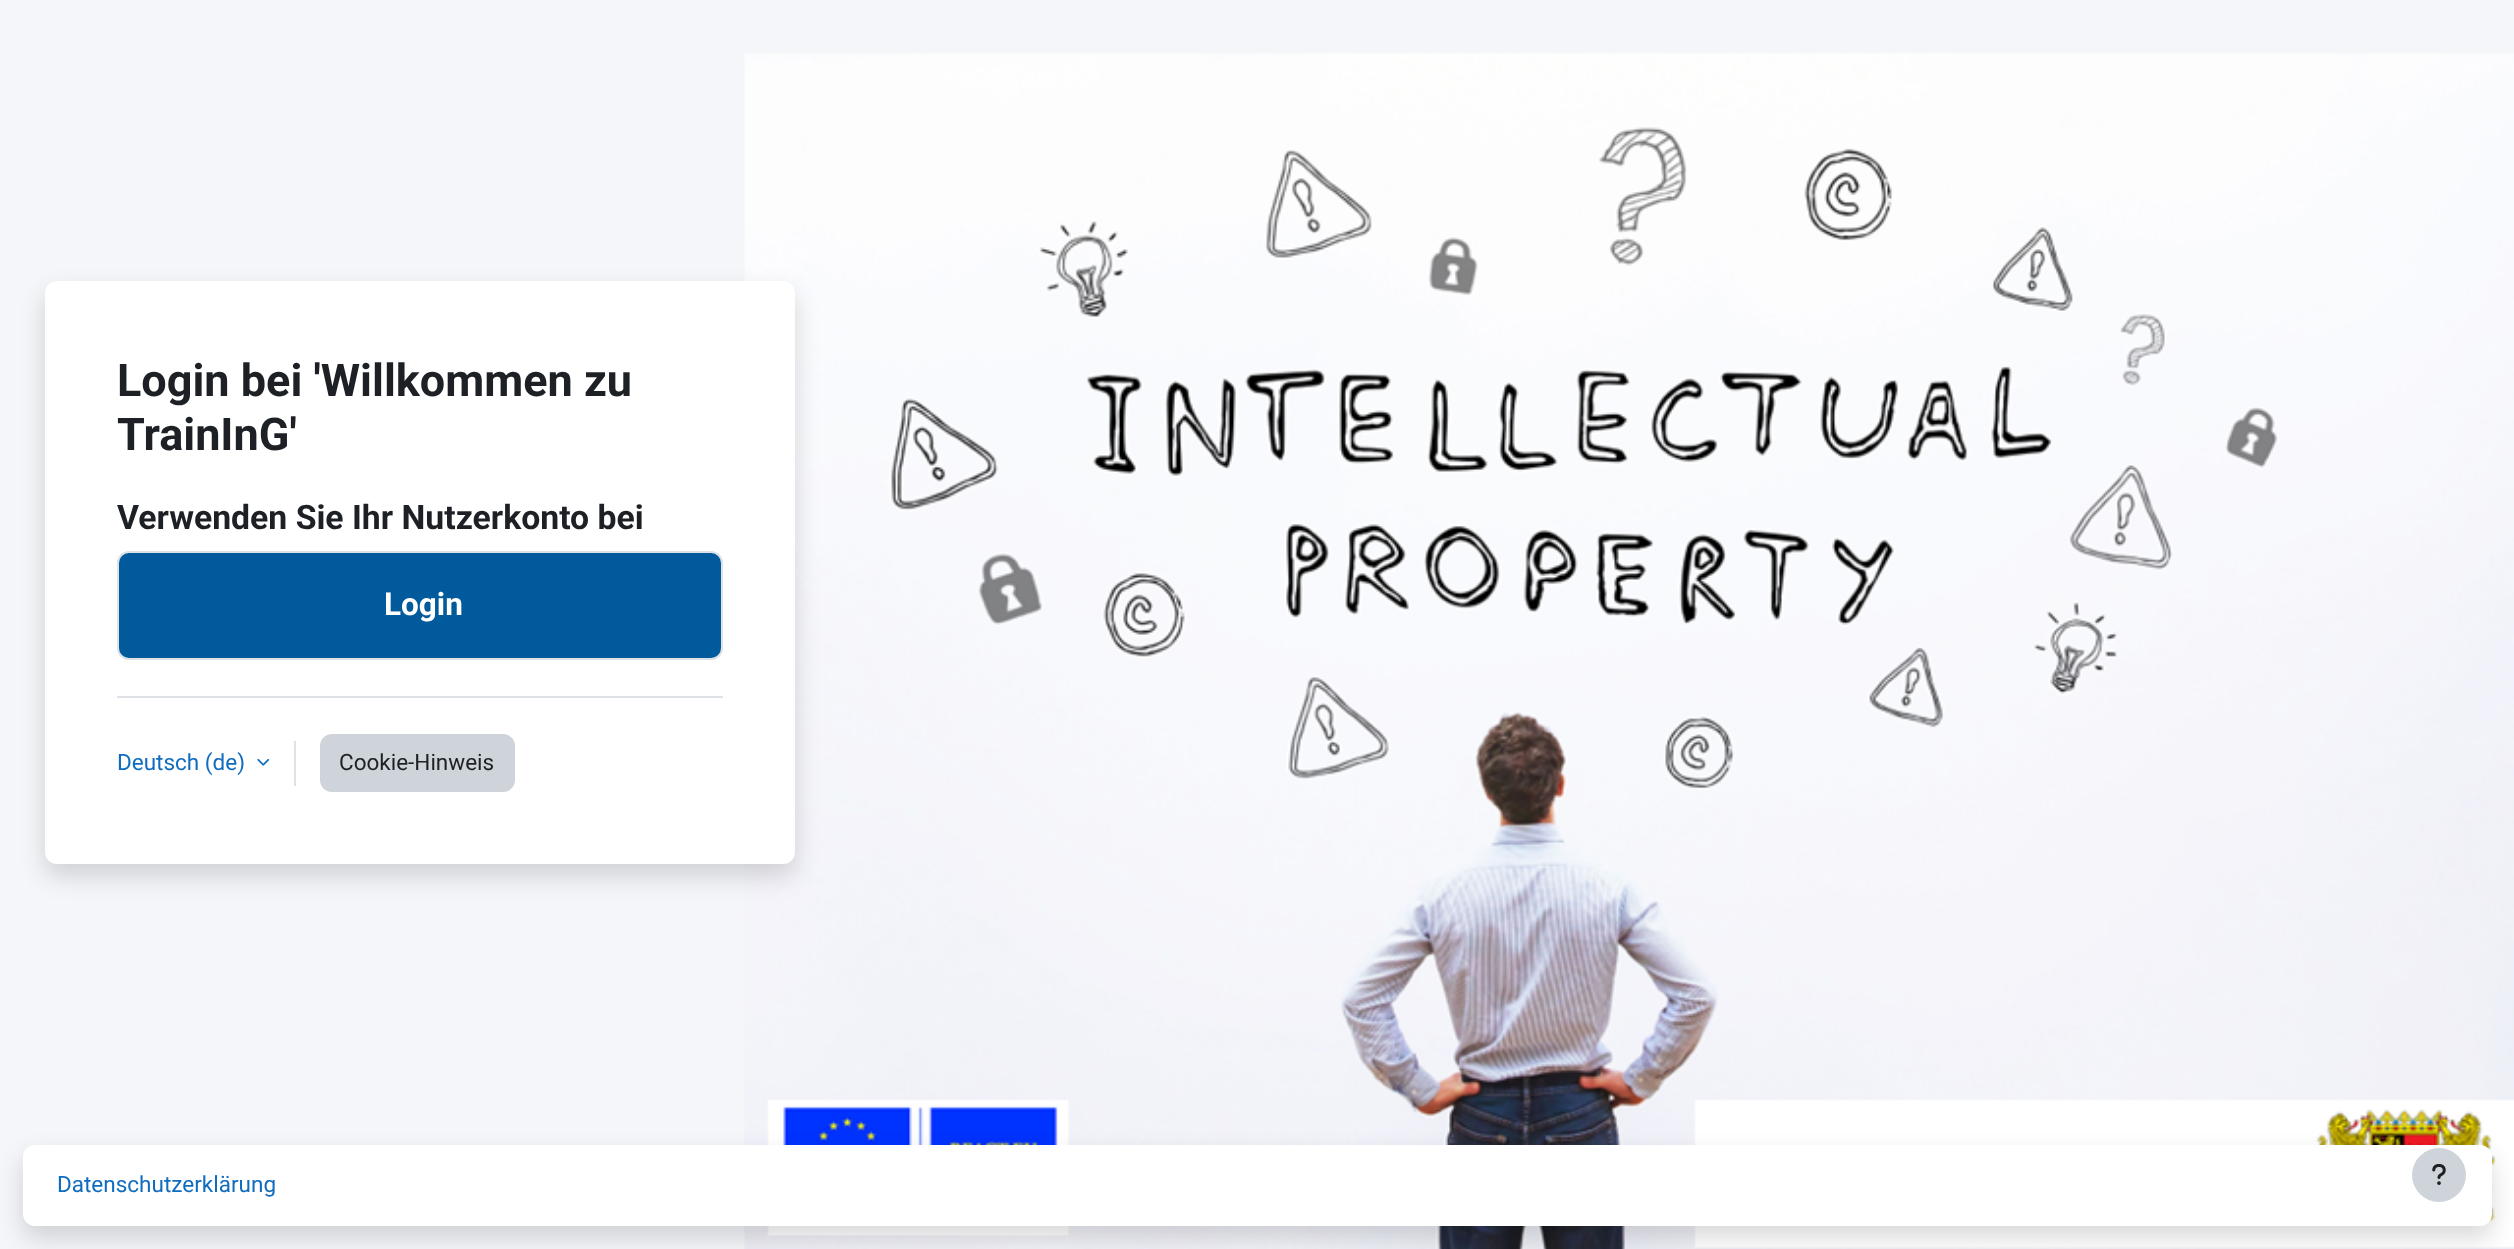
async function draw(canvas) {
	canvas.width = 2514;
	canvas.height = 1249;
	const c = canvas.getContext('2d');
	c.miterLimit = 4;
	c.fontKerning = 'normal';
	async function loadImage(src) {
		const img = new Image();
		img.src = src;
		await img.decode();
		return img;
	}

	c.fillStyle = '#fff';
	c.fillRect(0, 0, 2514, 1249);
	c.drawImage(await loadImage('img1.png'), 0, 0, 2514, 1249);
	c.fillStyle = '#00000026';
	c.filter = 'blur(12px)';
	c.beginPath();
	c.roundRect(45, 293, 750, 583, 12);
	c.fill();
	c.filter = 'none';
	c.fillStyle = '#fff';
	c.beginPath();
	c.roundRect(45, 281, 750, 583, 12);
	c.fill();
	c.font = 'bold 45px Roboto';
	c.fillStyle = '#1d2125';
	c.fillText('Login bei \'Willkommen zu', 117, 396);
	c.fillText('TrainInG\'', 117, 450);
	c.font = 'bold 33.75px Roboto';
	c.fillText('Verwenden Sie Ihr Nutzerkonto bei', 117, 529);
	c.fillStyle = '#005a9b';
	c.beginPath();
	c.roundRect(118, 552, 604, 107, 11);
	c.fill();
	c.strokeStyle = '#dee2e6';
	c.lineWidth = 2;
	c.stroke();
	c.font = 'bold 31.5px Roboto';
	c.fillStyle = '#fff';
	c.fillText('Login', 384, 615);
	c.fillStyle = '#dee2e6';
	c.fillRect(117, 696, 606, 2);
	c.font = '22.5px Roboto';
	c.fillStyle = '#0f6cbf';
	c.fillText('Deutsch (de)', 117, 770);
	c.drawImage(await loadImage('img2.png'), 257, 759, 13, 7);
	c.fillStyle = '#dee2e6';
	c.fillRect(294, 741, 2, 45);
	c.fillStyle = '#ced4da';
	c.beginPath();
	c.roundRect(321, 735, 193, 56, 11);
	c.fill();
	c.strokeStyle = '#ced4da';
	c.stroke();
	c.fillStyle = '#1d2125';
	c.fillText('Cookie-Hinweis', 339, 770);
	c.fillStyle = '#00000026';
	c.filter = 'blur(12px)';
	c.beginPath();
	c.roundRect(23, 1157, 2469, 81, 12);
	c.fill();
	c.filter = 'none';
	c.fillStyle = '#fff';
	c.beginPath();
	c.roundRect(23, 1145, 2469, 81, 12);
	c.fill();
	c.fillStyle = '#0f6cbf';
	c.fillText('Datenschutzerklärung', 57, 1192);
	c.fillStyle = '#ced4da';
	c.beginPath();
	c.arc(2439, 1175, 27, 0, 2 * Math.PI);
	c.fill();
	c.drawImage(await loadImage('img3.png'), 2432, 1164, 14, 21);
}

draw(document.querySelector('canvas'));
